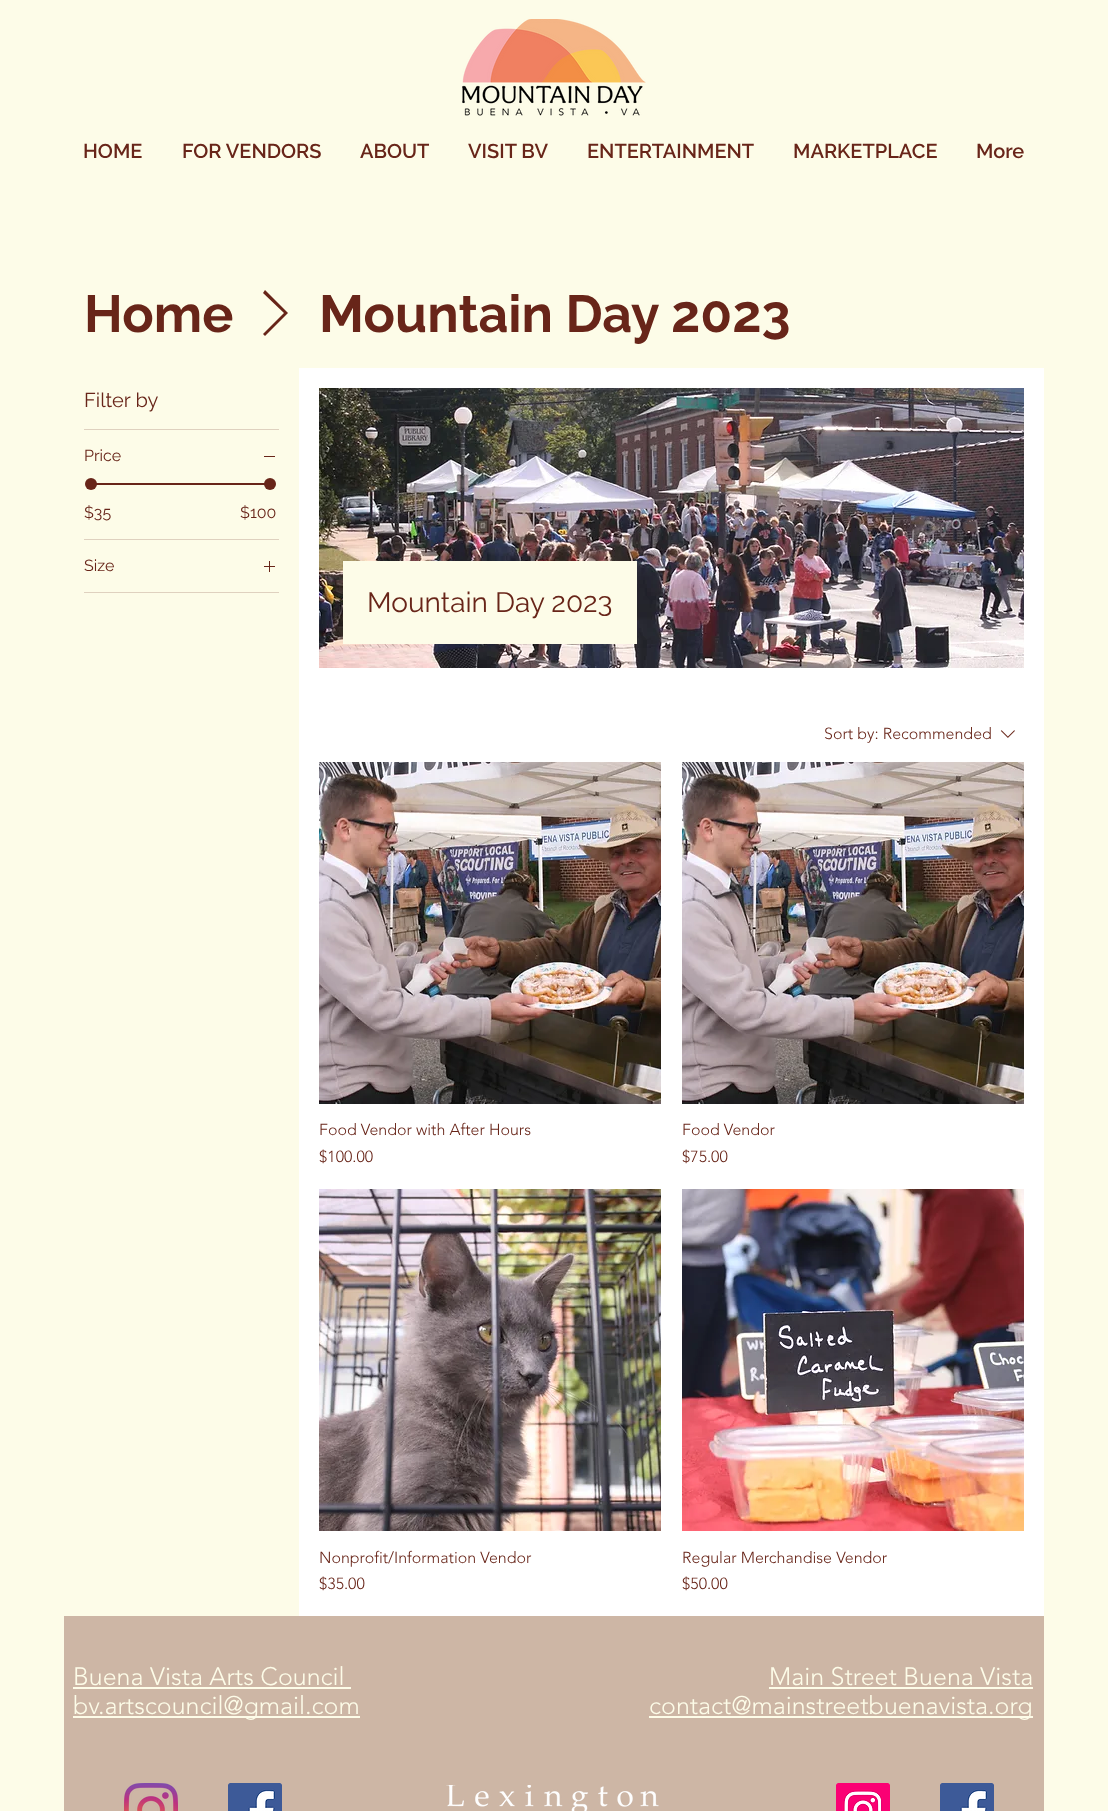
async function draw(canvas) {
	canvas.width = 1108;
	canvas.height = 1811;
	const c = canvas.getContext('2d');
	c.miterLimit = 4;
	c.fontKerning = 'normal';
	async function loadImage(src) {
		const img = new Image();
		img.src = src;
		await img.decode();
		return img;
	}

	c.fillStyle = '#fdfce8';
	c.fillRect(0, 0, 1108, 1811);
	c.drawImage(await loadImage('img1.png'), 462, 19, 184, 97);
	c.font = '600 20px Raleway';
	c.fillStyle = '#682519';
	for (const [text, x, y] of [
		['HOME', 83, 158],
		['FOR VENDORS', 182, 158],
		['ABOUT', 360, 158],
		['VISIT BV', 468, 158],
		['ENTERTAINMENT', 587, 158],
		['MARKETPLACE', 793, 158],
		['More', 976, 158],
	]) {
		c.fillText(text, x, y);
	}
	c.font = 'bold 52px Raleway';
	c.fillText('Home', 84, 332);
	c.beginPath();
	c.moveTo(265, 290);
	c.lineTo(288, 313);
	c.lineTo(265, 336);
	c.lineTo(263, 334);
	c.lineTo(284, 313);
	c.lineTo(263, 293);
	c.closePath();
	c.fill('evenodd');
	c.fillText('Mountain Day 2023', 319, 332);
	c.fillStyle = '#dfd1bf';
	c.fillRect(84, 429, 195, 1);
	c.font = '20px Raleway';
	c.fillStyle = '#682519';
	c.fillText('Filter by', 84, 407);
	c.fillStyle = '#dfd1bf';
	c.fillRect(84, 539, 195, 1);
	c.font = '16px Raleway';
	c.fillStyle = '#682519';
	c.fillText('Price', 84, 461);
	c.fillRect(264, 456, 11, 1);
	c.fillRect(90, 483, 179, 2);
	c.beginPath();
	c.arc(91, 484, 6, 0, 2 * Math.PI);
	c.fill();
	c.beginPath();
	c.arc(270, 484, 6, 0, 2 * Math.PI);
	c.fill();
	c.fillText('$35', 84, 518);
	c.fillText('$100', 240, 518);
	c.fillStyle = '#dfd1bf';
	c.fillRect(84, 592, 195, 1);
	c.fillStyle = '#682519';
	c.fillText('Size', 84, 571);
	c.drawImage(await loadImage('img2.png'), 264, 561, 11, 11);
	c.fillStyle = '#fff';
	c.fillRect(299, 368, 745, 1248);
	c.drawImage(await loadImage('img3.png'), 319, 388, 705, 280);
	c.fillStyle = '#fdfce8';
	c.fillRect(343, 561, 294, 83);
	c.font = '28px Raleway';
	c.fillStyle = '#682519';
	c.fillText('Mountain Day 2023', 367, 612);
	c.font = '300 16px "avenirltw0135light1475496"';
	c.fillText('Sort by: Recommended', 824, 739);
	c.drawImage(await loadImage('img4.png'), 1000, 730, 15, 8);
	c.drawImage(await loadImage('img5.png'), 319, 762, 342, 342);
	c.fillText('Food Vendor with After Hours', 319, 1135);
	c.fillText('$100.00', 319, 1162);
	c.drawImage(await loadImage('img5.png'), 682, 762, 342, 342);
	c.fillText('Food Vendor', 682, 1135);
	c.fillText('$75.00', 682, 1162);
	c.drawImage(await loadImage('img6.png'), 319, 1189, 342, 342);
	c.fillText('Nonprofit/Information Vendor', 319, 1563);
	c.fillText('$35.00', 319, 1589);
	c.drawImage(await loadImage('img7.png'), 682, 1189, 342, 342);
	c.fillText('Regular Merchandise Vendor', 682, 1563);
	c.fillText('$50.00', 682, 1589);
	c.fillStyle = '#cdb6a5';
	c.fillRect(64, 1616, 980, 195);
	c.font = '300 25px "avenirltw0135light1475496"';
	c.fillStyle = '#fdfce8';
	c.fillText('Buena Vista Arts Council', 73, 1685);
	c.fillRect(73, 1687, 278, 2);
	c.fillRect(73, 1716, 287, 2);
	c.fillText('bv.artscouncil@gmail.com', 73, 1714);
	c.fillText('Main Street Buena Vista', 769, 1685);
	c.fillRect(769, 1687, 264, 2);
	c.fillRect(649, 1716, 384, 2);
	c.fillText('contact@mainstreetbuenavista.org', 649, 1714);
	c.drawImage(await loadImage('img8.png'), 124, 1783, 54, 28);
	c.drawImage(await loadImage('img9.png'), 228, 1783, 54, 28);
	c.drawImage(await loadImage('img10.png'), 446, 1785, 213, 26);
	c.drawImage(await loadImage('img11.png'), 836, 1783, 54, 28);
	c.drawImage(await loadImage('img9.png'), 940, 1783, 54, 28);
}

draw(document.querySelector('canvas'));
